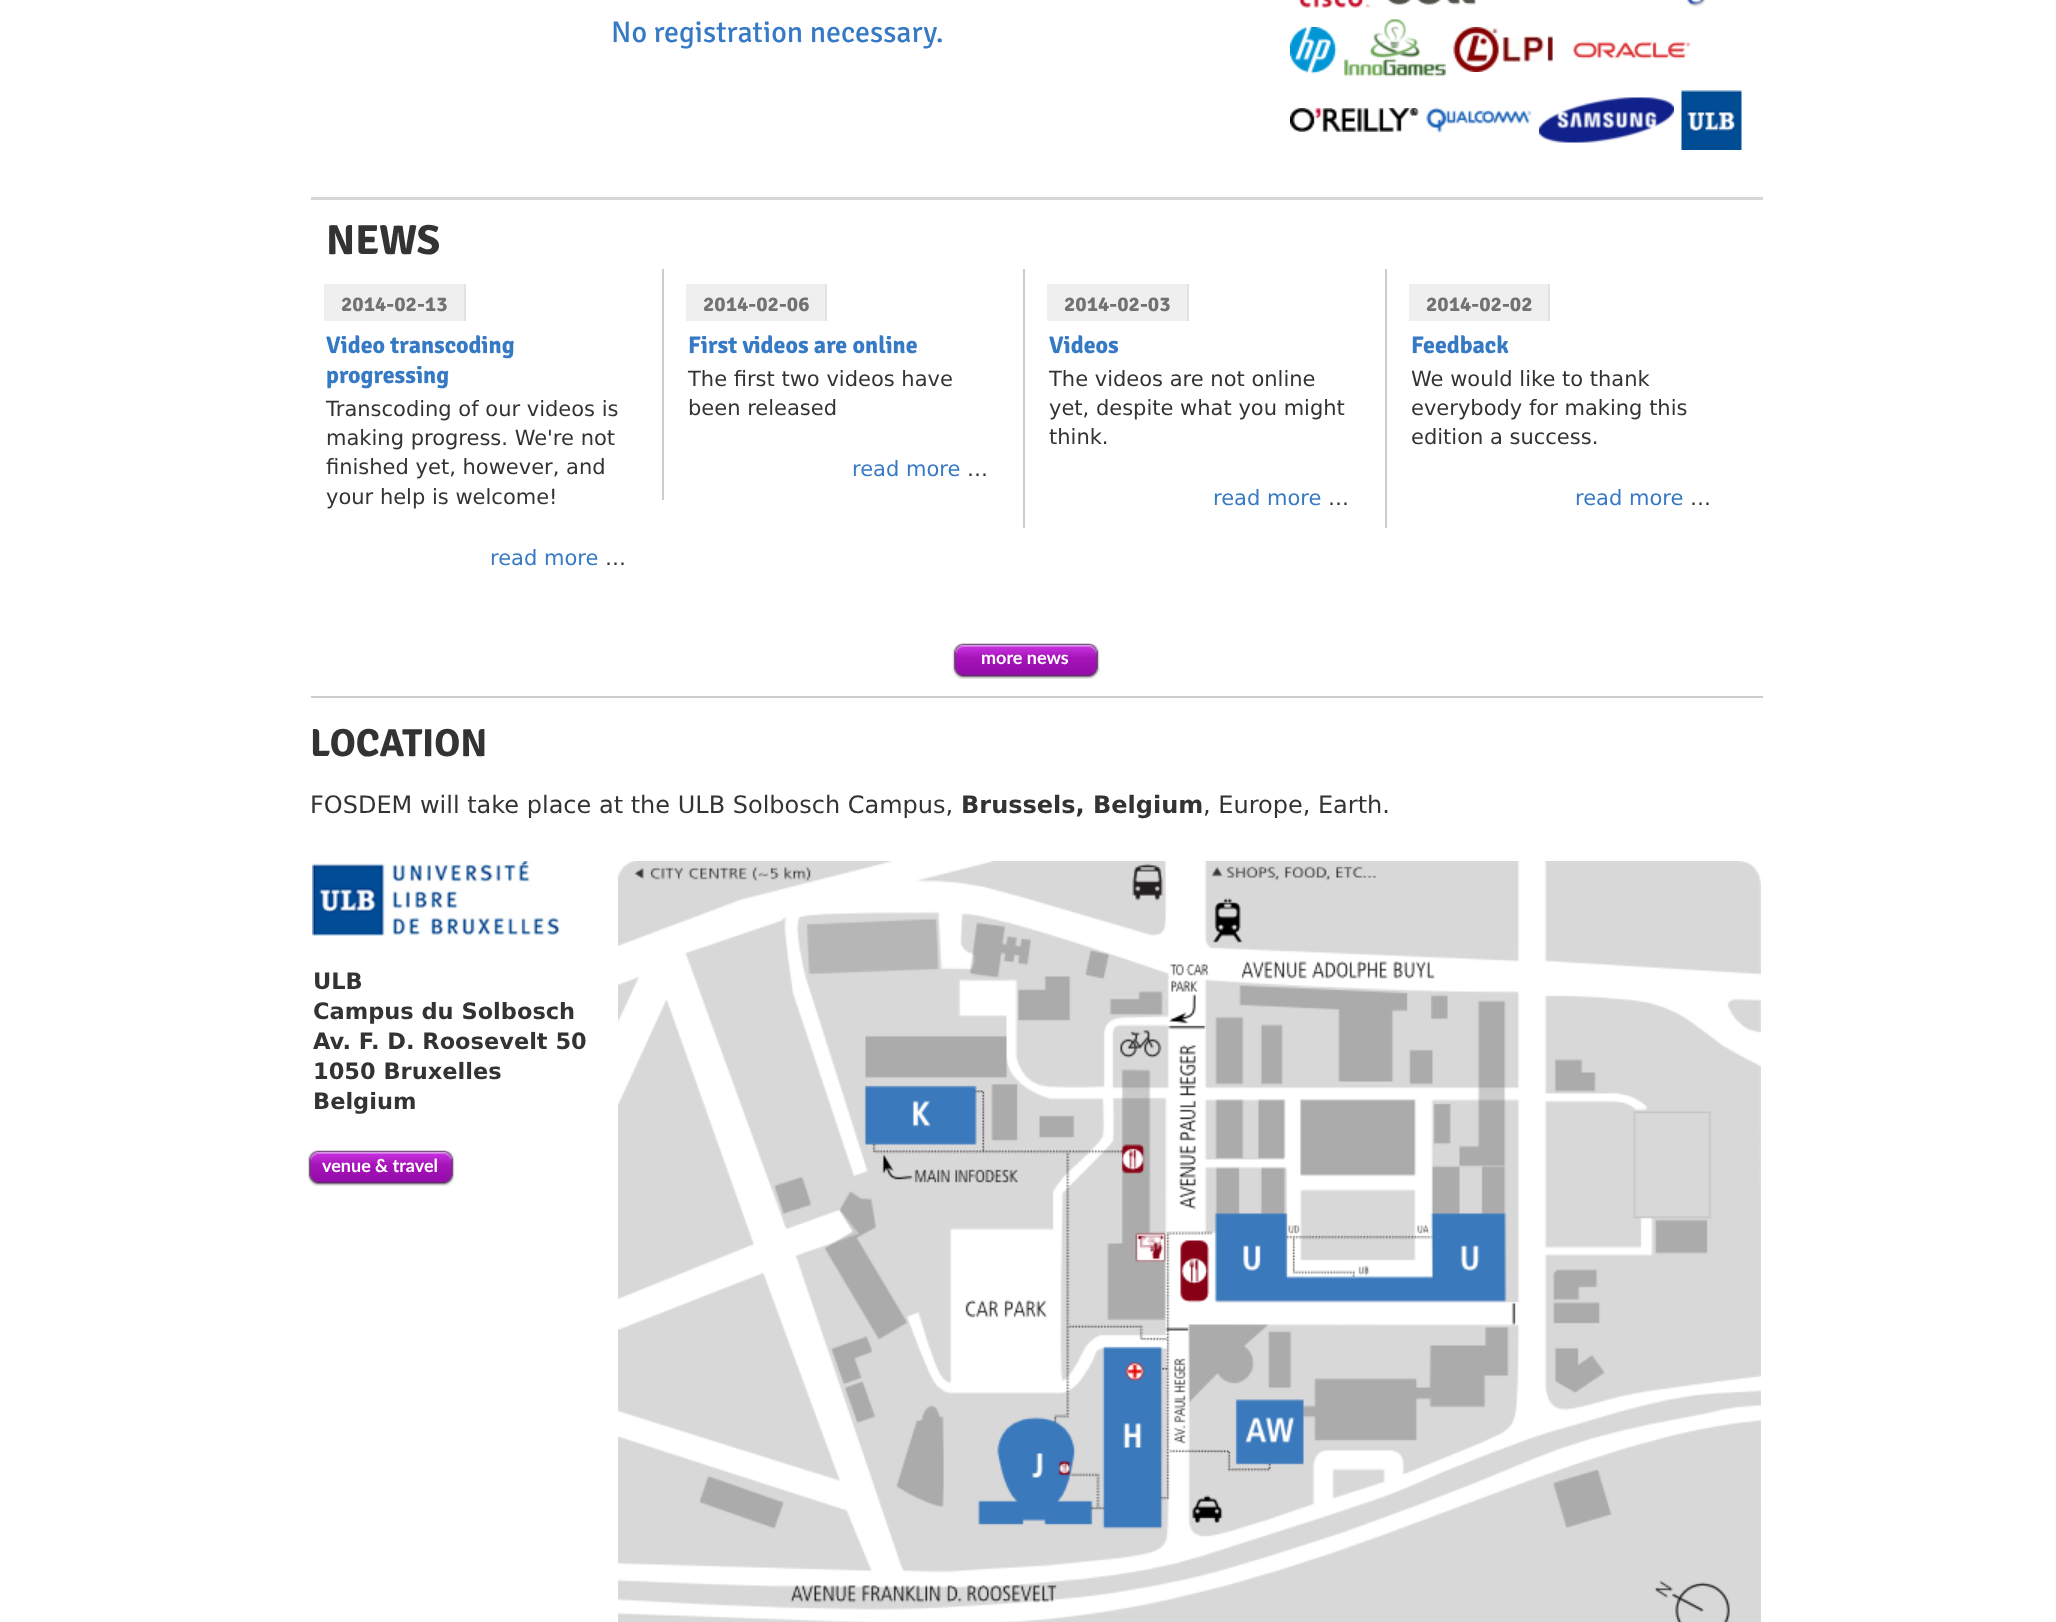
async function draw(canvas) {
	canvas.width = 2056;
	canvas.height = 1622;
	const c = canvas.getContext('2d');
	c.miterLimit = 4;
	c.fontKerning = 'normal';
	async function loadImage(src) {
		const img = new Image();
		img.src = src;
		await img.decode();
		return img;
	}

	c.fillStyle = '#fff';
	c.fillRect(0, 0, 2056, 1622);
	c.fillStyle = '#d6d6d6';
	c.fillRect(311, 197, 1452, 3);
	c.font = '30px Signika';
	c.fillStyle = '#3679c4';
	c.fillText('No registration necessary.', 611, 42);
	c.drawImage(await loadImage('img1.png'), 1298, 0, 72, 8);
	c.drawImage(await loadImage('img2.png'), 1387, 0, 89, 5);
	c.drawImage(await loadImage('img3.png'), 1687, 0, 19, 7);
	c.drawImage(await loadImage('img4.png'), 1290, 27, 47, 47);
	c.drawImage(await loadImage('img5.png'), 1344, 19, 102, 58);
	c.drawImage(await loadImage('img6.png'), 1453, 27, 100, 45);
	c.drawImage(await loadImage('img7.png'), 1573, 41, 118, 18);
	c.drawImage(await loadImage('img8.png'), 1290, 108, 129, 24);
	c.drawImage(await loadImage('img9.png'), 1426, 107, 106, 26);
	c.drawImage(await loadImage('img10.png'), 1539, 97, 135, 46);
	c.drawImage(await loadImage('img11.png'), 1681, 90, 61, 60);
	c.fillStyle = '#ccc';
	c.fillRect(311, 696, 1452, 2);
	c.font = 'bold 42px Signika';
	c.fillStyle = '#333';
	c.fillText('NEWS', 326, 254);
	c.fillStyle = '#efefef';
	c.fillRect(324, 284, 140, 37);
	c.fillStyle = '#e2e2e2';
	c.fillRect(464, 284, 2, 37);
	c.font = 'bold 21px Signika';
	c.fillStyle = '#727272';
	c.fillText('2014-02-13', 341, 311);
	c.font = 'bold 24px Signika';
	c.fillStyle = '#3679c4';
	c.fillText('Video transcoding', 326, 353);
	c.fillText('progressing', 326, 383);
	c.font = '21px DejaVu Sans';
	c.fillStyle = '#333';
	for (const [text, x, y] of [
		['Transcoding of our videos is', 326, 416],
		['making progress. We\'re not', 326, 445],
		['finished yet, however, and', 326, 474],
		['your help is welcome!', 326, 504],
	]) {
		c.fillText(text, x, y);
	}
	c.fillStyle = '#3679c4';
	c.fillText('read more', 490, 565);
	c.fillStyle = '#333';
	c.fillText('…', 605, 565);
	for (const [x, y, w, h, color] of [
		[662, 269, 2, 231, '#ccc'],
		[686, 284, 139, 37, '#efefef'],
		[825, 284, 2, 37, '#e2e2e2'],
	]) {
		c.fillStyle = color;
		c.fillRect(x, y, w, h);
	}
	c.font = 'bold 21px Signika';
	c.fillStyle = '#727272';
	c.fillText('2014-02-06', 703, 311);
	c.font = 'bold 24px Signika';
	c.fillStyle = '#3679c4';
	c.fillText('First videos are online', 688, 353);
	c.font = '21px DejaVu Sans';
	c.fillStyle = '#333';
	c.fillText('The first two videos have', 688, 386);
	c.fillText('been released', 688, 415);
	c.fillStyle = '#3679c4';
	c.fillText('read more', 852, 476);
	c.fillStyle = '#333';
	c.fillText('…', 967, 476);
	for (const [x, y, w, h, color] of [
		[1023, 269, 2, 259, '#ccc'],
		[1047, 284, 140, 37, '#efefef'],
		[1187, 284, 2, 37, '#e2e2e2'],
	]) {
		c.fillStyle = color;
		c.fillRect(x, y, w, h);
	}
	c.font = 'bold 21px Signika';
	c.fillStyle = '#727272';
	c.fillText('2014-02-03', 1064, 311);
	c.font = 'bold 24px Signika';
	c.fillStyle = '#3679c4';
	c.fillText('Videos', 1049, 353);
	c.font = '21px DejaVu Sans';
	c.fillStyle = '#333';
	for (const [text, x, y] of [
		['The videos are not online', 1049, 386],
		['yet, despite what you might', 1049, 415],
		['think.', 1049, 444],
	]) {
		c.fillText(text, x, y);
	}
	c.fillStyle = '#3679c4';
	c.fillText('read more', 1213, 505);
	c.fillStyle = '#333';
	c.fillText('…', 1328, 505);
	for (const [x, y, w, h, color] of [
		[1385, 269, 2, 259, '#ccc'],
		[1409, 284, 139, 37, '#efefef'],
		[1548, 284, 2, 37, '#e2e2e2'],
	]) {
		c.fillStyle = color;
		c.fillRect(x, y, w, h);
	}
	c.font = 'bold 21px Signika';
	c.fillStyle = '#727272';
	c.fillText('2014-02-02', 1426, 311);
	c.font = 'bold 24px Signika';
	c.fillStyle = '#3679c4';
	c.fillText('Feedback', 1411, 353);
	c.font = '21px DejaVu Sans';
	c.fillStyle = '#333';
	for (const [text, x, y] of [
		['We would like to thank', 1411, 386],
		['everybody for making this', 1411, 415],
		['edition a success.', 1411, 444],
	]) {
		c.fillText(text, x, y);
	}
	c.fillStyle = '#3679c4';
	c.fillText('read more', 1575, 505);
	c.fillStyle = '#333';
	c.fillText('…', 1690, 505);
	c.drawImage(await loadImage('img12.png'), 952, 643, 148, 36);
	c.font = 'bold 18px Lato';
	c.fillStyle = '#fff';
	c.fillText('more news', 981, 664);
	c.font = 'bold 39px Signika';
	c.fillStyle = '#333';
	c.fillText('LOCATION', 310, 756);
	c.font = '24px DejaVu Sans';
	c.fillText('FOSDEM will take place at the ULB Solbosch Campus,', 310, 813);
	c.font = 'bold 24px DejaVu Sans';
	c.fillText('Brussels, Belgium', 961, 813);
	c.font = '24px DejaVu Sans';
	c.fillText(', Europe, Earth.', 1203, 813);
	c.drawImage(await loadImage('img13.png'), 312, 861, 248, 75);
	c.font = 'bold 22.5px DejaVu Sans';
	for (const [text, x, y] of [
		['ULB', 313, 989],
		['Campus du Solbosch', 313, 1019],
		['Av. F. D. Roosevelt 50', 313, 1049],
		['1050 Bruxelles', 313, 1079],
		['Belgium', 313, 1109],
	]) {
		c.fillText(text, x, y);
	}
	c.drawImage(await loadImage('img14.png'), 308, 1150, 147, 36);
	c.font = 'bold 18px Lato';
	c.fillStyle = '#fff';
	c.fillText('venue & travel', 322, 1172);
	c.drawImage(await loadImage('img15.png'), 618, 861, 1143, 761);
}

draw(document.querySelector('canvas'));
